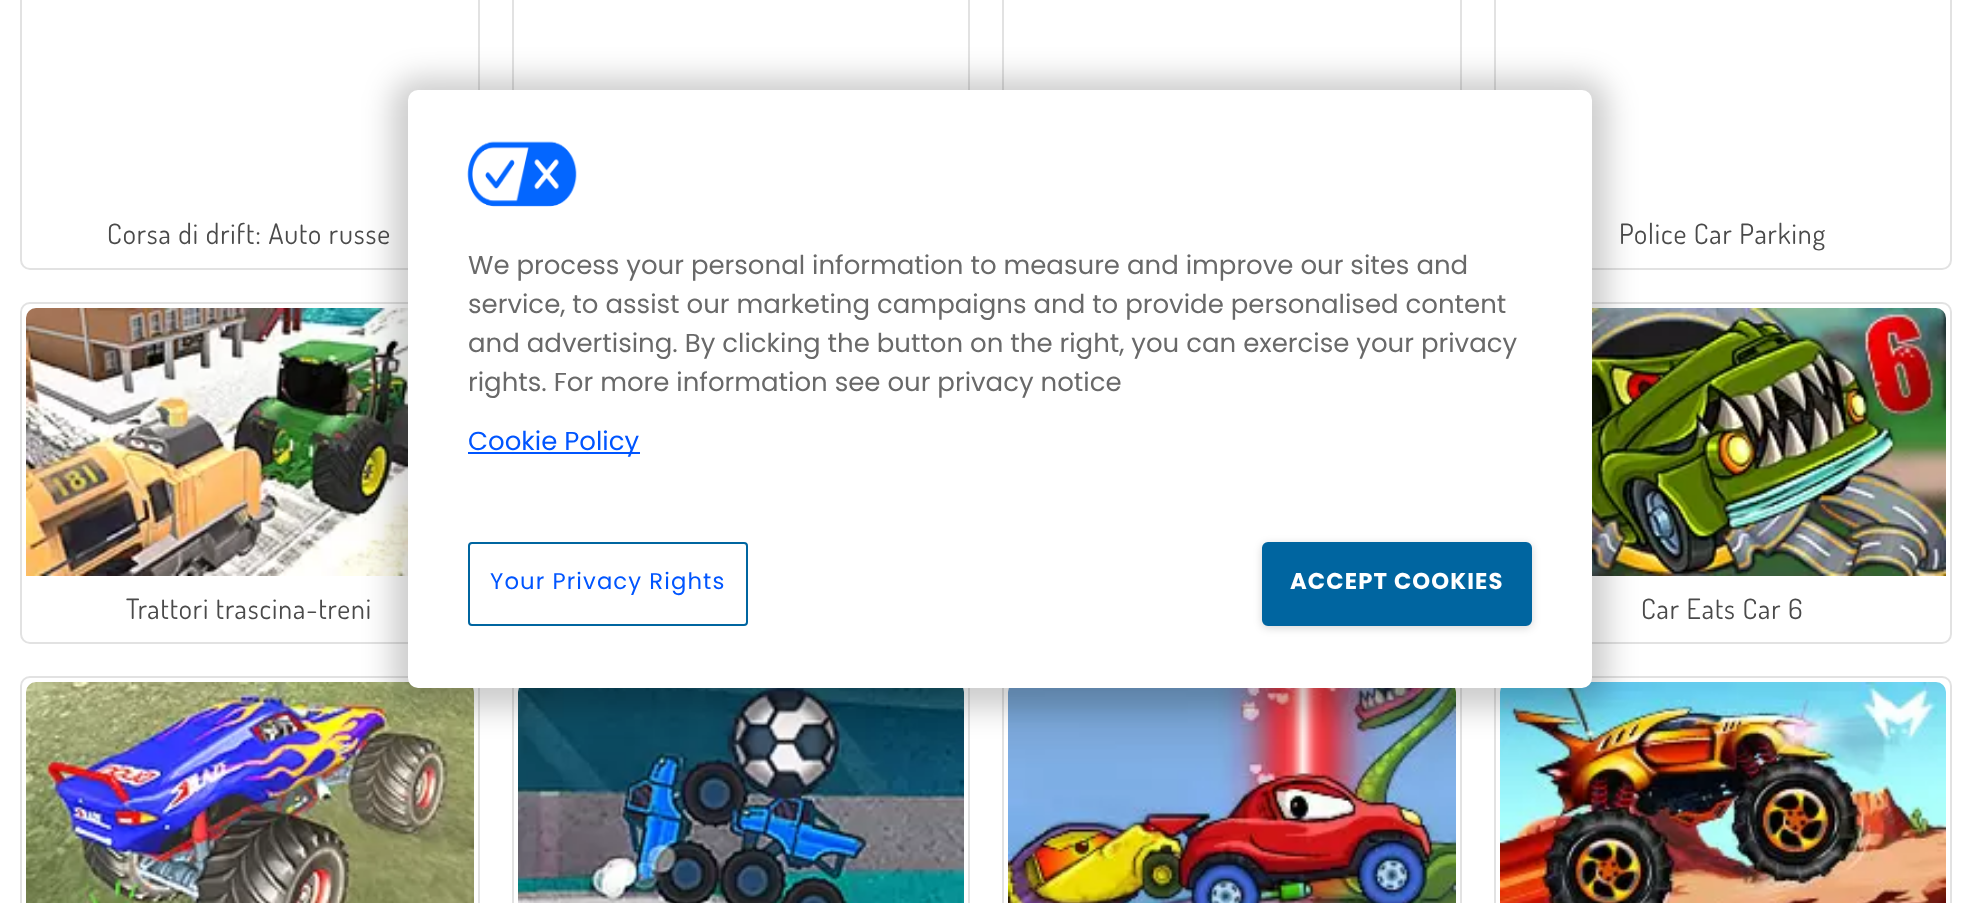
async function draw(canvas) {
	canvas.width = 1972;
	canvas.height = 903;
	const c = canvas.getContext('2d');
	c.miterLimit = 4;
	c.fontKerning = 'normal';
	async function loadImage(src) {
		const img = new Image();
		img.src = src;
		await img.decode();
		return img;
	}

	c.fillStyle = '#fff';
	c.fillRect(0, 0, 1972, 903);
	c.beginPath();
	c.roundRect(21, -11, 458, 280, 9);
	c.strokeStyle = '#e2e2e2';
	c.lineWidth = 2;
	c.stroke();
	c.letterSpacing = '0.95px';
	c.font = '28px Dosis';
	c.fillStyle = '#4a4a4a';
	c.fillText('Corsa di drift: Auto russe', 107, 244);
	c.strokeRect(513, -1, 456, 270);
	c.strokeRect(1003, -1, 458, 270);
	c.beginPath();
	c.roundRect(1495, -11, 456, 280, 9);
	c.stroke();
	c.fillText('Police Car Parking', 1619, 244);
	c.beginPath();
	c.roundRect(21, 303, 458, 340, 9);
	c.stroke();
	c.drawImage(await loadImage('img1.png'), 26, 308, 382, 268);
	c.fillText('Trattori trascina-treni', 126, 619);
	c.beginPath();
	c.roundRect(1495, 303, 456, 340, 9);
	c.stroke();
	c.drawImage(await loadImage('img2.png'), 1592, 308, 354, 268);
	c.fillText('Car Eats Car 6', 1641, 619);
	c.beginPath();
	c.roundRect(21, 677, 458, 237, 9);
	c.stroke();
	c.drawImage(await loadImage('img3.png'), 26, 682, 448, 221);
	c.strokeRect(513, 677, 456, 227);
	c.drawImage(await loadImage('img4.png'), 518, 688, 446, 215);
	c.strokeRect(1003, 677, 458, 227);
	c.drawImage(await loadImage('img5.png'), 1008, 688, 448, 215);
	c.beginPath();
	c.roundRect(1495, 677, 456, 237, 9);
	c.stroke();
	c.drawImage(await loadImage('img6.png'), 1500, 682, 446, 221);
	c.fillStyle = '#00000033';
	c.filter = 'blur(15px)';
	c.beginPath();
	c.roundRect(392, 78, 1216, 630, 26);
	c.fill();
	c.filter = 'none';
	c.fillStyle = '#fff';
	c.beginPath();
	c.roundRect(408, 90, 1184, 598, 10);
	c.fill();
	c.drawImage(await loadImage('img7.png'), 467, 141, 110, 66);
	c.letterSpacing = '0px';
	c.font = '26px Poppins';
	c.fillStyle = '#696969';
	for (const [text, x, y] of [
		['We process your personal information to measure and improve our sites and', 468, 274],
		['service, to assist our marketing campaigns and to provide personalised content', 468, 313],
		['and advertising. By clicking the button on the right, you can exercise your privacy', 468, 352],
		['rights. For more information see our privacy notice', 468, 391],
	]) {
		c.fillText(text, x, y);
	}
	c.fillStyle = '#05f';
	c.fillRect(468, 452, 172, 2);
	c.fillText('Cookie Policy', 468, 450);
	c.beginPath();
	c.roundRect(469, 543, 278, 82, 3);
	c.strokeStyle = '#0065a0';
	c.stroke();
	c.letterSpacing = '1.1px';
	c.font = '22.75px Poppins';
	c.fillText('Your Privacy Rights', 490, 589);
	c.fillStyle = '#00000029';
	c.filter = 'blur(4px)';
	c.beginPath();
	c.roundRect(1262, 544, 270, 84, 6);
	c.fill();
	c.filter = 'none';
	c.fillStyle = '#0065a0';
	c.beginPath();
	c.roundRect(1263, 543, 268, 82, 5);
	c.fill();
	c.stroke();
	c.font = 'bold 22.75px Poppins';
	c.fillStyle = '#fff';
	c.fillText('ACCEPT COOKIES', 1290, 589);
}

draw(document.querySelector('canvas'));
